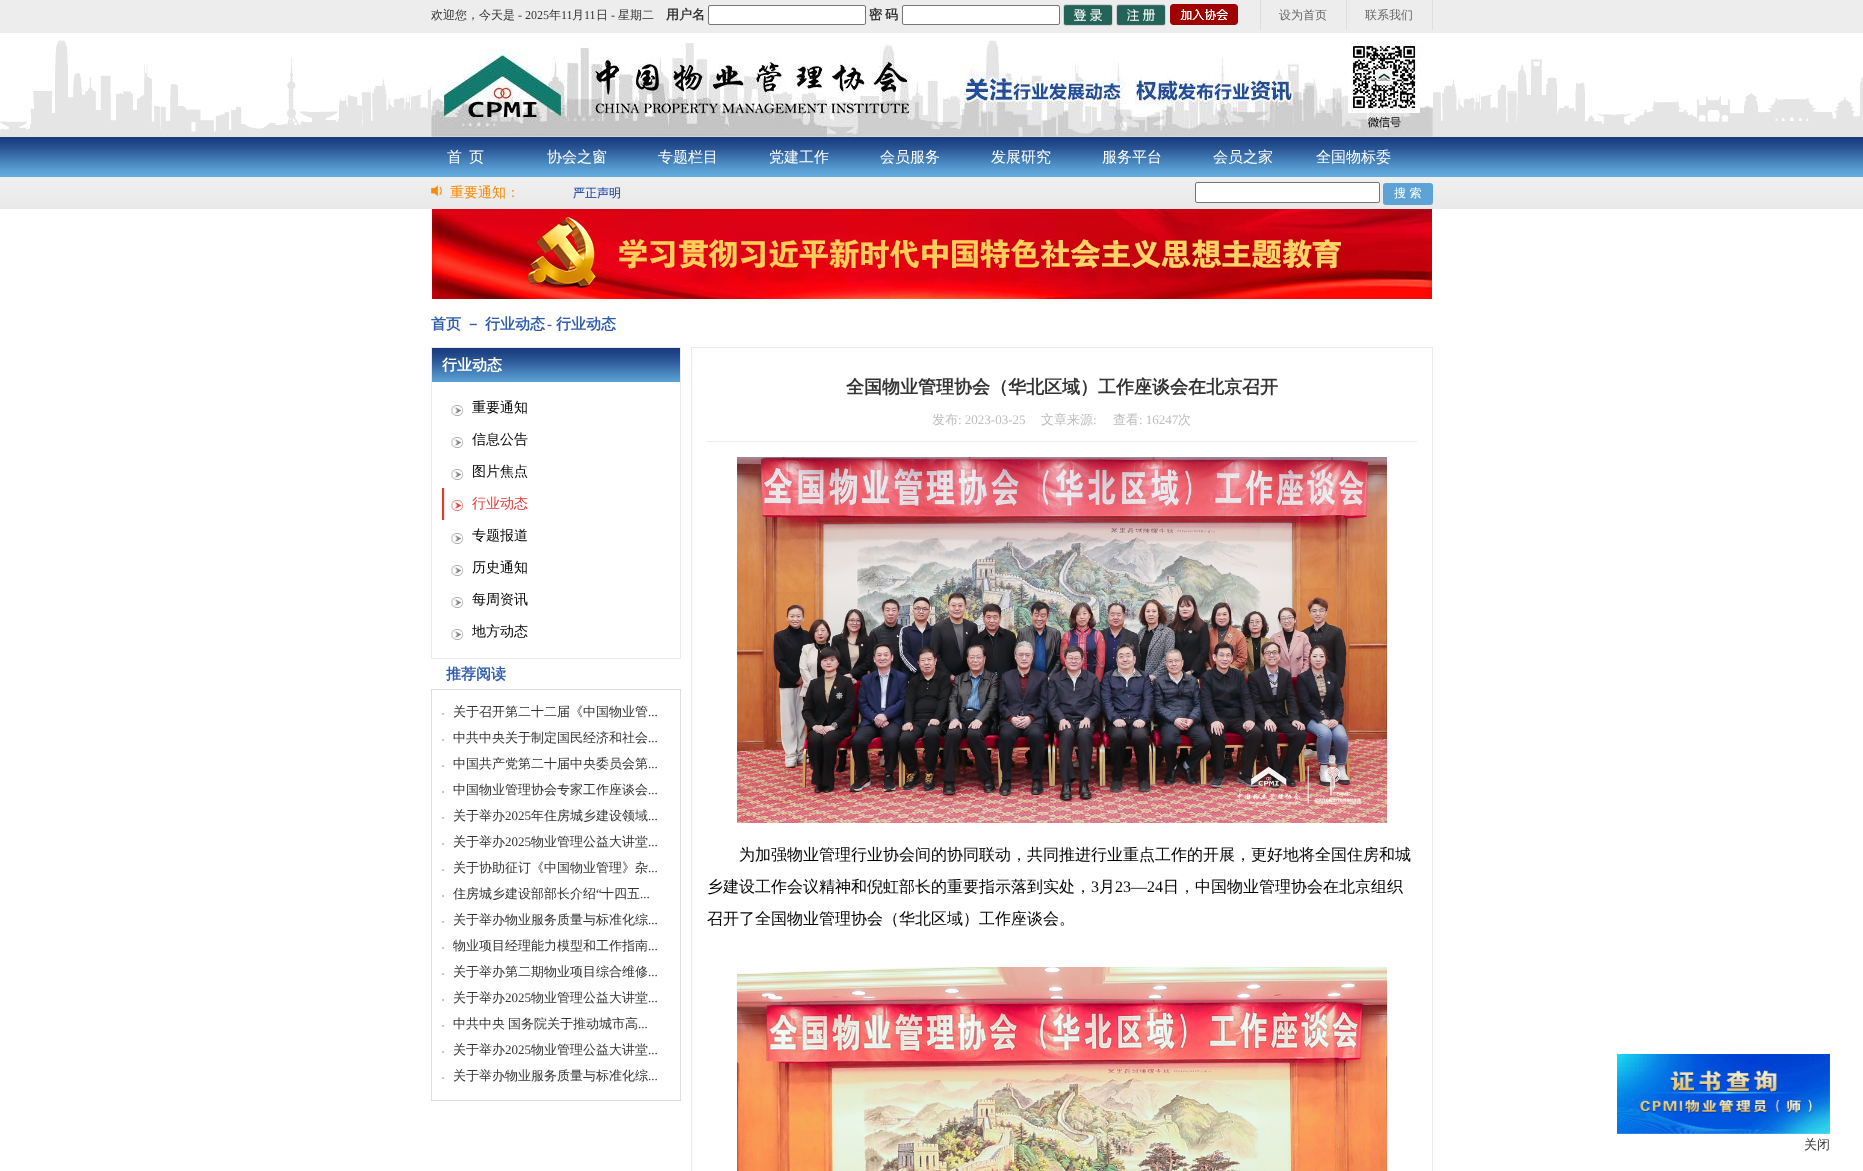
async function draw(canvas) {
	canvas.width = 1863;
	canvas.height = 1171;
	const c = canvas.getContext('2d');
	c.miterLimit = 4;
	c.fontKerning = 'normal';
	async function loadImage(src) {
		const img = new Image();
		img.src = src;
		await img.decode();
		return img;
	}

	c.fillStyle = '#fff';
	c.fillRect(0, 0, 1863, 1171);
	c.drawImage(await loadImage('img1.png'), 0, 0, 1863, 209);
	c.font = '500 12px WenQuanYi Zen Hei';
	c.fillStyle = '#333';
	c.fillText('欢迎您，今天是', 431, 19);
	c.font = '12px Liberation Serif';
	c.fillText('- 2025', 518, 19);
	c.font = '500 12px WenQuanYi Zen Hei';
	c.fillText('年', 549, 19);
	c.font = '12px Liberation Serif';
	c.fillText('11', 561, 19);
	c.font = '500 12px WenQuanYi Zen Hei';
	c.fillText('月', 572, 19);
	c.font = '12px Liberation Serif';
	c.fillText('11', 584, 19);
	c.font = '500 12px WenQuanYi Zen Hei';
	c.fillText('日', 596, 19);
	c.font = '12px Liberation Serif';
	c.fillText('-', 611, 19);
	c.font = '500 12px WenQuanYi Zen Hei';
	c.fillText('星期二', 618, 19);
	c.font = 'bold 13px WenQuanYi Zen Hei';
	c.fillText('用户名', 666, 19);
	c.fillStyle = '#fff';
	c.beginPath();
	c.roundRect(708.5, 5.5, 157, 19, 1.5);
	c.fill();
	c.strokeStyle = '#767676';
	c.stroke();
	c.fillStyle = '#333';
	c.fillText('密', 869, 19);
	c.fillText('码', 885, 19);
	c.fillStyle = '#fff';
	c.beginPath();
	c.roundRect(902.5, 5.5, 157, 19, 1.5);
	c.fill();
	c.stroke();
	c.drawImage(await loadImage('img2.png'), 1063, 4, 50, 22);
	c.drawImage(await loadImage('img3.png'), 1116, 4, 50, 22);
	c.drawImage(await loadImage('img4.png'), 1170, 4, 68, 21);
	c.fillStyle = '#dedede';
	c.fillRect(1260, 0, 1, 30);
	c.font = '500 12px WenQuanYi Zen Hei';
	c.fillStyle = '#666';
	c.fillText('设为首页', 1279, 19);
	c.fillStyle = '#dedede';
	c.fillRect(1432, 0, 1, 30);
	c.fillRect(1346, 0, 1, 30);
	c.fillStyle = '#666';
	c.fillText('联系我们', 1365, 19);
	c.drawImage(await loadImage('img5.png'), 0, 40, 1863, 97);
	c.drawImage(await loadImage('img6.png'), 431, 40, 1002, 97);
	c.drawImage(await loadImage('img7.png'), 410, 137, 1, 4);
	c.font = '500 15px WenQuanYi Zen Hei';
	c.fillStyle = '#fff';
	c.fillText('首', 447, 162);
	c.fillText('页', 469, 162);
	c.drawImage(await loadImage('img7.png'), 521, 137, 1, 4);
	c.fillText('协会之窗', 547, 162);
	c.drawImage(await loadImage('img7.png'), 632, 137, 1, 4);
	c.fillText('专题栏目', 658, 162);
	c.drawImage(await loadImage('img7.png'), 743, 137, 1, 4);
	c.fillText('党建工作', 769, 162);
	c.drawImage(await loadImage('img7.png'), 854, 137, 1, 4);
	c.fillText('会员服务', 880, 162);
	c.drawImage(await loadImage('img7.png'), 965, 137, 1, 4);
	c.fillText('发展研究', 991, 162);
	c.drawImage(await loadImage('img7.png'), 1076, 137, 1, 4);
	c.fillText('服务平台', 1102, 162);
	c.drawImage(await loadImage('img7.png'), 1187, 137, 1, 4);
	c.fillText('会员之家', 1213, 162);
	c.drawImage(await loadImage('img7.png'), 1298, 137, 1, 4);
	c.fillText('全国物标委', 1316, 162);
	c.drawImage(await loadImage('img8.png'), 431, 184, 12, 13);
	c.font = '500 14px WenQuanYi Zen Hei';
	c.fillStyle = '#ff8a00';
	c.fillText('重要通知：', 450, 197);
	c.font = '500 12px WenQuanYi Zen Hei';
	c.fillStyle = '#039';
	c.fillText('严正声明', 573, 197);
	c.fillStyle = '#fff';
	c.beginPath();
	c.roundRect(1195.5, 182.5, 184, 20, 1.5);
	c.fill();
	c.stroke();
	c.fillStyle = '#5da3d6';
	c.beginPath();
	c.roundRect(1383, 183, 50, 22, 3);
	c.fill();
	c.fillStyle = '#fff';
	c.fillText('搜 索', 1394, 197);
	c.drawImage(await loadImage('img9.png'), 432, 209, 1000, 90);
	c.font = 'bold 15px WenQuanYi Zen Hei';
	c.fillStyle = '#315dae';
	c.fillText('首页 － 行业动态', 431, 329);
	c.font = 'bold 15px Liberation Serif';
	c.fillText('-', 547, 329);
	c.font = 'bold 15px WenQuanYi Zen Hei';
	c.fillText('行业动态', 556, 329);
	c.strokeStyle = '#ebebeb';
	c.strokeRect(431.5, 347.5, 249, 311);
	c.drawImage(await loadImage('img10.png'), 432, 348, 248, 34);
	c.fillStyle = '#fff';
	c.fillText('行业动态', 442, 370);
	c.drawImage(await loadImage('img11.png'), 451, 405, 12, 11);
	c.font = '500 14px WenQuanYi Zen Hei';
	c.fillStyle = '#000';
	c.fillText('重要通知', 472, 412);
	c.drawImage(await loadImage('img11.png'), 451, 437, 12, 11);
	c.fillText('信息公告', 472, 444);
	c.drawImage(await loadImage('img11.png'), 451, 469, 12, 11);
	c.fillText('图片焦点', 472, 476);
	c.drawImage(await loadImage('img12.png'), 442, 488, 21, 32);
	c.fillStyle = '#e63636';
	c.fillText('行业动态', 472, 508);
	c.drawImage(await loadImage('img11.png'), 451, 533, 12, 11);
	c.fillStyle = '#000';
	c.fillText('专题报道', 472, 540);
	c.drawImage(await loadImage('img11.png'), 451, 565, 12, 11);
	c.fillText('历史通知', 472, 572);
	c.drawImage(await loadImage('img11.png'), 451, 597, 12, 11);
	c.fillText('每周资讯', 472, 604);
	c.drawImage(await loadImage('img11.png'), 451, 629, 12, 11);
	c.fillText('地方动态', 472, 636);
	c.font = 'bold 15px WenQuanYi Zen Hei';
	c.fillStyle = '#315dae';
	c.fillText('推荐阅读', 446, 679);
	c.strokeStyle = '#dedede';
	c.strokeRect(431.5, 689.5, 249, 411);
	c.fillStyle = '#c9c9c9';
	c.fillRect(442, 713, 2, 2);
	c.font = '500 13px WenQuanYi Zen Hei';
	c.fillStyle = '#333';
	c.fillText('关于召开第二十二届《中国物业管', 453, 716);
	c.font = '13px Liberation Serif';
	c.fillText('...', 648, 716);
	c.fillStyle = '#c9c9c9';
	c.fillRect(442, 739, 2, 2);
	c.font = '500 13px WenQuanYi Zen Hei';
	c.fillStyle = '#333';
	c.fillText('中共中央关于制定国民经济和社会', 453, 742);
	c.font = '13px Liberation Serif';
	c.fillText('...', 648, 742);
	c.fillStyle = '#c9c9c9';
	c.fillRect(442, 765, 2, 2);
	c.font = '500 13px WenQuanYi Zen Hei';
	c.fillStyle = '#333';
	c.fillText('中国共产党第二十届中央委员会第', 453, 768);
	c.font = '13px Liberation Serif';
	c.fillText('...', 648, 768);
	c.fillStyle = '#c9c9c9';
	c.fillRect(442, 791, 2, 2);
	c.font = '500 13px WenQuanYi Zen Hei';
	c.fillStyle = '#333';
	c.fillText('中国物业管理协会专家工作座谈会', 453, 794);
	c.font = '13px Liberation Serif';
	c.fillText('...', 648, 794);
	c.fillStyle = '#c9c9c9';
	c.fillRect(442, 817, 2, 2);
	c.font = '500 13px WenQuanYi Zen Hei';
	c.fillStyle = '#333';
	c.fillText('关于举办', 453, 820);
	c.font = '13px Liberation Serif';
	c.fillText('2025', 505, 820);
	c.font = '500 13px WenQuanYi Zen Hei';
	c.fillText('年住房城乡建设领域', 531, 820);
	c.font = '13px Liberation Serif';
	c.fillText('...', 648, 820);
	c.fillStyle = '#c9c9c9';
	c.fillRect(442, 843, 2, 2);
	c.font = '500 13px WenQuanYi Zen Hei';
	c.fillStyle = '#333';
	c.fillText('关于举办', 453, 846);
	c.font = '13px Liberation Serif';
	c.fillText('2025', 505, 846);
	c.font = '500 13px WenQuanYi Zen Hei';
	c.fillText('物业管理公益大讲堂', 531, 846);
	c.font = '13px Liberation Serif';
	c.fillText('...', 648, 846);
	c.fillStyle = '#c9c9c9';
	c.fillRect(442, 869, 2, 2);
	c.font = '500 13px WenQuanYi Zen Hei';
	c.fillStyle = '#333';
	c.fillText('关于协助征订《中国物业管理》杂', 453, 872);
	c.font = '13px Liberation Serif';
	c.fillText('...', 648, 872);
	c.font = '500 13px WenQuanYi Zen Hei';
	c.fillText('住房城乡建设部部长介绍', 453, 898);
	c.font = '13px Liberation Serif';
	c.fillText('“', 596, 898);
	c.font = '500 13px WenQuanYi Zen Hei';
	c.fillText('十四五', 601, 898);
	c.fillStyle = '#c9c9c9';
	c.fillRect(442, 895, 2, 2);
	c.font = '13px Liberation Serif';
	c.fillStyle = '#333';
	c.fillText('...', 640, 898);
	c.fillStyle = '#c9c9c9';
	c.fillRect(442, 921, 2, 2);
	c.font = '500 13px WenQuanYi Zen Hei';
	c.fillStyle = '#333';
	c.fillText('关于举办物业服务质量与标准化综', 453, 924);
	c.font = '13px Liberation Serif';
	c.fillText('...', 648, 924);
	c.fillStyle = '#c9c9c9';
	c.fillRect(442, 947, 2, 2);
	c.font = '500 13px WenQuanYi Zen Hei';
	c.fillStyle = '#333';
	c.fillText('物业项目经理能力模型和工作指南', 453, 950);
	c.font = '13px Liberation Serif';
	c.fillText('...', 648, 950);
	c.fillStyle = '#c9c9c9';
	c.fillRect(442, 973, 2, 2);
	c.font = '500 13px WenQuanYi Zen Hei';
	c.fillStyle = '#333';
	c.fillText('关于举办第二期物业项目综合维修', 453, 976);
	c.font = '13px Liberation Serif';
	c.fillText('...', 648, 976);
	c.fillStyle = '#c9c9c9';
	c.fillRect(442, 999, 2, 2);
	c.font = '500 13px WenQuanYi Zen Hei';
	c.fillStyle = '#333';
	c.fillText('关于举办', 453, 1002);
	c.font = '13px Liberation Serif';
	c.fillText('2025', 505, 1002);
	c.font = '500 13px WenQuanYi Zen Hei';
	c.fillText('物业管理公益大讲堂', 531, 1002);
	c.font = '13px Liberation Serif';
	c.fillText('...', 648, 1002);
	c.fillStyle = '#c9c9c9';
	c.fillRect(442, 1025, 2, 2);
	c.wordSpacing = '-1px';
	c.font = '500 13px WenQuanYi Zen Hei';
	c.fillStyle = '#333';
	c.fillText('中共中央 国务院关于推动城市高', 453, 1028);
	c.wordSpacing = '0px';
	c.font = '13px Liberation Serif';
	c.fillText('...', 638, 1028);
	c.fillStyle = '#c9c9c9';
	c.fillRect(442, 1051, 2, 2);
	c.font = '500 13px WenQuanYi Zen Hei';
	c.fillStyle = '#333';
	c.fillText('关于举办', 453, 1054);
	c.font = '13px Liberation Serif';
	c.fillText('2025', 505, 1054);
	c.font = '500 13px WenQuanYi Zen Hei';
	c.fillText('物业管理公益大讲堂', 531, 1054);
	c.font = '13px Liberation Serif';
	c.fillText('...', 648, 1054);
	c.fillStyle = '#c9c9c9';
	c.fillRect(442, 1077, 2, 2);
	c.font = '500 13px WenQuanYi Zen Hei';
	c.fillStyle = '#333';
	c.fillText('关于举办物业服务质量与标准化综', 453, 1080);
	c.font = '13px Liberation Serif';
	c.fillText('...', 648, 1080);
	c.strokeStyle = '#ebebeb';
	c.strokeRect(691.5, 347.5, 741, 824);
	c.fillStyle = '#ededed';
	c.fillRect(707, 441, 710, 1);
	c.font = 'bold 18px WenQuanYi Zen Hei';
	c.fillStyle = '#333';
	c.fillText('全国物业管理协会（华北区域）工作座谈会在北京召开', 846, 393);
	c.font = '500 13px WenQuanYi Zen Hei';
	c.fillStyle = '#bdbdbd';
	c.fillText('发布', 932, 424);
	c.font = '13px Liberation Serif';
	c.fillText(': 2023-03-25', 958, 424);
	c.font = '500 13px WenQuanYi Zen Hei';
	c.fillText('文章来源', 1041, 424);
	c.font = '13px Liberation Serif';
	c.fillText(':', 1093, 424);
	c.font = '500 13px WenQuanYi Zen Hei';
	c.fillText('查看', 1113, 424);
	c.font = '13px Liberation Serif';
	c.fillText(': 16247', 1139, 424);
	c.font = '500 13px WenQuanYi Zen Hei';
	c.fillText('次', 1178, 424);
	c.drawImage(await loadImage('img13.png'), 737, 457, 650, 366);
	c.font = '500 16px WenQuanYi Zen Hei';
	c.fillStyle = '#000';
	c.fillText('为加强物业管理行业协会间的协同联动，共同推进行业重点工作的开展，更好地将全国住房和城', 739, 860);
	c.fillText('乡建设工作会议精神和倪虹部长的重要指示落到实处，', 707, 892);
	c.font = '16px Liberation Serif';
	c.fillText('3', 1091, 892);
	c.font = '500 16px WenQuanYi Zen Hei';
	c.fillText('月', 1099, 892);
	c.font = '16px Liberation Serif';
	c.fillText('23—24', 1115, 892);
	c.font = '500 16px WenQuanYi Zen Hei';
	c.fillText('日，中国物业管理协会在北京组织', 1163, 892);
	c.fillText('召开了全国物业管理协会（华北区域）工作座谈会。', 707, 924);
	c.drawImage(await loadImage('img14.png'), 737, 967, 650, 204);
	c.drawImage(await loadImage('img15.png'), 1617, 1054, 213, 80);
	c.font = '500 13px WenQuanYi Zen Hei';
	c.fillStyle = '#333';
	c.fillText('关闭', 1804, 1149);
}

draw(document.querySelector('canvas'));
